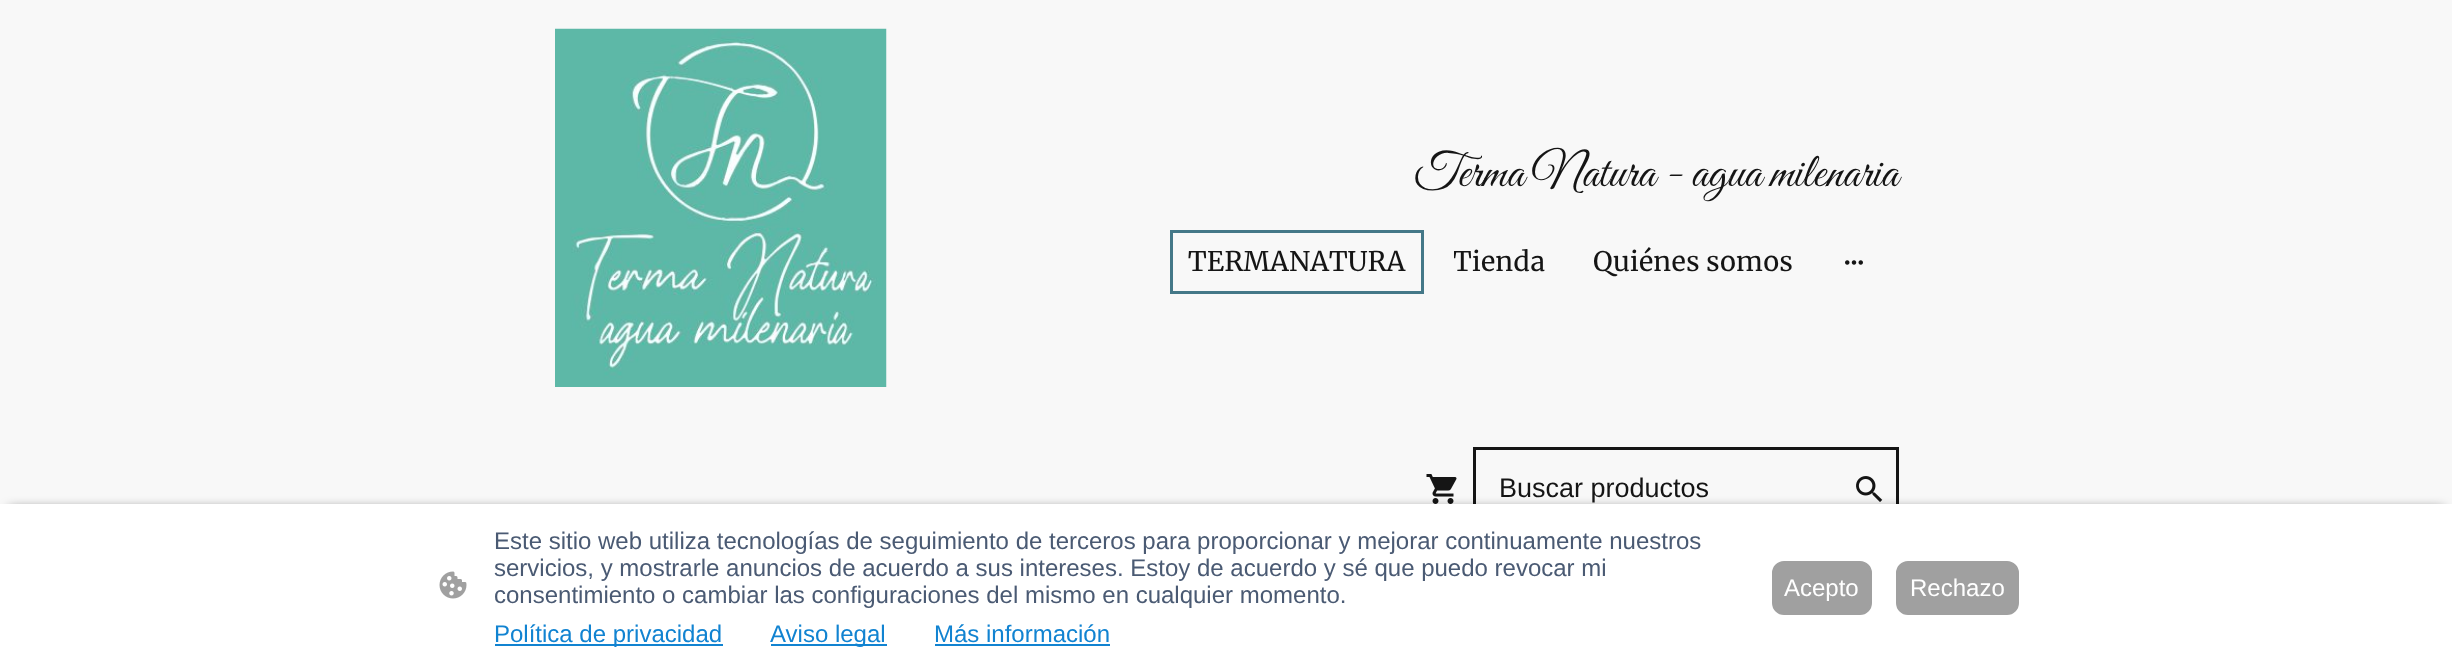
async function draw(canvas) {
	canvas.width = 2452;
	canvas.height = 671;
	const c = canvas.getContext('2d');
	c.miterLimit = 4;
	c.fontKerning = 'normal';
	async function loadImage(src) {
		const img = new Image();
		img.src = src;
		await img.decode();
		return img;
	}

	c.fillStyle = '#f8f8f8';
	c.fillRect(0, 0, 2452, 671);
	c.drawImage(await loadImage('img1.png'), 555, 28, 332, 359);
	c.font = '48px Great Vibes';
	c.fillStyle = '#151515';
	c.fillText('Terma Natura - agua milenaria', 1414, 186);
	c.strokeStyle = '#447888';
	c.lineWidth = 3;
	c.strokeRect(1171.5, 231.5, 251, 61);
	c.font = '27px Merriweather';
	c.fillText('TERMANATURA', 1188, 271);
	c.save();
	c.beginPath();
	c.rect(1454, 245, 91, 34);
	c.clip();
	c.fillText('Tienda', 1453, 271);
	c.restore();
	c.fillText('Quiénes somos', 1593, 271);
	c.drawImage(await loadImage('img2.png'), 1845, 260, 18, 5);
	c.drawImage(await loadImage('img3.png'), 1426, 474, 31, 30);
	c.strokeStyle = '#151515';
	c.strokeRect(1474.5, 448.5, 423, 83);
	c.font = '27px Liberation Sans';
	c.fillText('Buscar productos', 1499, 497);
	c.drawImage(await loadImage('img4.png'), 1856, 476, 27, 26);
	c.fillStyle = '#000000a1';
	c.filter = 'blur(6px)';
	c.beginPath();
	c.rect(9, 509, 2435, 150);
	c.fill();
	c.filter = 'none';
	c.fillStyle = '#fff';
	c.fillRect(0, 504, 2452, 167);
	c.drawImage(await loadImage('img5.png'), 439, 571, 28, 28);
	c.font = '24px Liberation Sans';
	c.fillStyle = '#4a5a73';
	for (const [text, x, y] of [
		['Este sitio web utiliza tecnologías de seguimiento de terceros para proporcionar y mejorar continuamente nuestros', 494, 549],
		['servicios, y mostrarle anuncios de acuerdo a sus intereses. Estoy de acuerdo y sé que puedo revocar mi', 494, 576],
		['consentimiento o cambiar las configuraciones del mismo en cualquier momento.', 494, 603],
	]) {
		c.fillText(text, x, y);
	}
	c.fillStyle = '#1183d1';
	c.fillRect(495, 644, 228, 2);
	c.fillText('Política de privacidad', 494, 642);
	c.fillRect(771, 644, 116, 2);
	c.fillText('Aviso legal', 770, 642);
	c.fillText('Más información', 934, 642);
	c.fillRect(935, 644, 175, 2);
	c.fillStyle = '#a0a0a0';
	c.beginPath();
	c.roundRect(1773, 562, 98, 52, 11);
	c.fill();
	c.strokeStyle = '#a0a0a0';
	c.lineWidth = 2;
	c.stroke();
	c.fillStyle = '#fff';
	c.fillText('Acepto', 1784, 596);
	c.fillStyle = '#a0a0a0';
	c.beginPath();
	c.roundRect(1897, 562, 121, 52, 11);
	c.fill();
	c.stroke();
	c.fillStyle = '#fff';
	c.fillText('Rechazo', 1910, 596);
}

draw(document.querySelector('canvas'));
